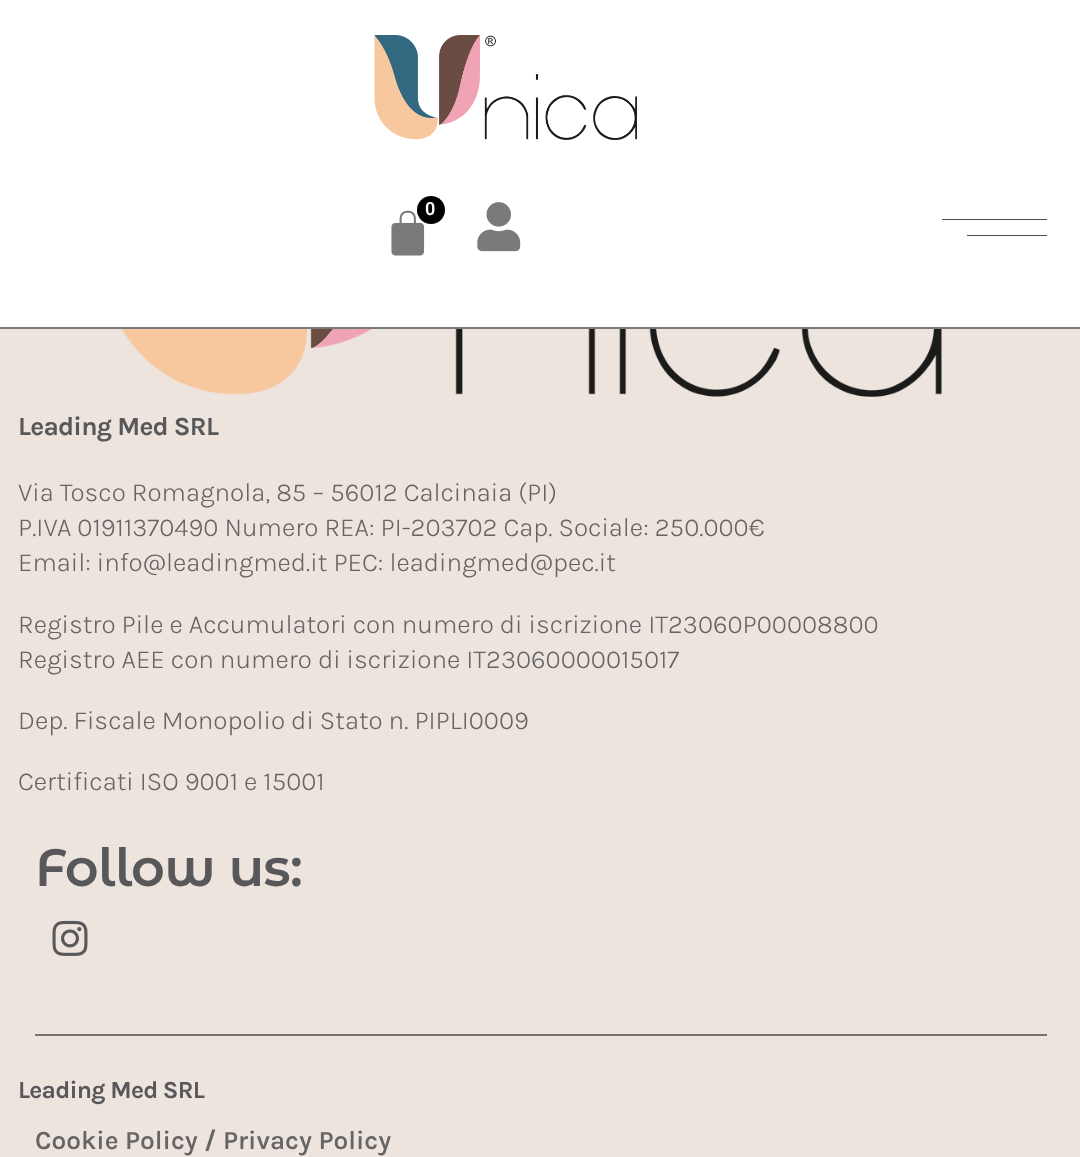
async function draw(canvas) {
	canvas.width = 1080;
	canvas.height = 1157;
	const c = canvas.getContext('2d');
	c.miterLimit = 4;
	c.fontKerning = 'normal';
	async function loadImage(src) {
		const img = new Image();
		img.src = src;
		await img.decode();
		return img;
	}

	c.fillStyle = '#eee4de';
	c.fillRect(0, 0, 1080, 1157);
	c.fillStyle = '#fff';
	c.fillRect(0, 0, 1080, 327);
	c.fillStyle = '#7a7a7a';
	c.fillRect(0, 327, 1080, 2);
	c.drawImage(await loadImage('img1.png'), 374, 35, 263, 105);
	c.drawImage(await loadImage('img2.png'), 391, 210, 34, 46);
	c.fillStyle = '#000';
	c.beginPath();
	c.arc(431, 210, 14, 0, 2 * Math.PI);
	c.fill();
	c.font = '600 18px Roboto';
	c.fillStyle = '#fff';
	c.fillText('0', 425, 215);
	c.drawImage(await loadImage('img3.png'), 477, 202, 44, 50);
	c.fillStyle = '#4d4d4d';
	c.fillRect(942, 219, 105, 1);
	c.fillRect(967, 235, 80, 1);
	c.drawImage(await loadImage('img4.png'), 121, 329, 821, 68);
	c.letterSpacing = '-0.75px';
	c.font = 'bold 26.25px Karla';
	c.fillStyle = '#58585a';
	c.fillText('Leading Med SRL', 18, 435);
	c.letterSpacing = '0px';
	c.font = '300 26.25px Karla';
	c.fillStyle = '#656565';
	for (const [text, x, y] of [
		['Via Tosco Romagnola, 85 – 56012 Calcinaia (PI)', 18, 501],
		['P.IVA 01911370490 Numero REA: PI-203702 Cap. Sociale: 250.000€', 18, 536],
		['Email: info@leadingmed.it PEC: leadingmed@pec.it', 18, 571],
		['Registro Pile e Accumulatori con numero di iscrizione IT23060P00008800', 18, 633],
		['Registro AEE con numero di iscrizione IT23060000015017', 18, 668],
		['Dep. Fiscale Monopolio di Stato n. PIPLI0009', 18, 729],
		['Certificati ISO 9001 e 15001', 18, 790],
	]) {
		c.fillText(text, x, y);
	}
	c.letterSpacing = '-0.75px';
	c.font = '600 52.5px Montserrat Alternates';
	c.fillStyle = '#58585a';
	c.fillText('Follow us:', 35, 886);
	c.drawImage(await loadImage('img5.png'), 52, 920, 36, 36);
	c.fillStyle = '#737373';
	c.fillRect(35, 1034, 1012, 2);
	c.font = 'bold 24.5px Karla';
	c.fillStyle = '#58585a';
	c.fillText('Leading Med SRL', 18, 1098);
	c.letterSpacing = '0px';
	c.font = '600 26.25px Karla';
	c.fillStyle = '#656565';
	c.fillText('Cookie Policy', 35, 1149);
	c.font = 'bold 26.25px Karla';
	c.fillText('/', 204, 1149);
	c.font = '600 26.25px Karla';
	c.fillText('Privacy Policy', 223, 1149);
}

draw(document.querySelector('canvas'));
